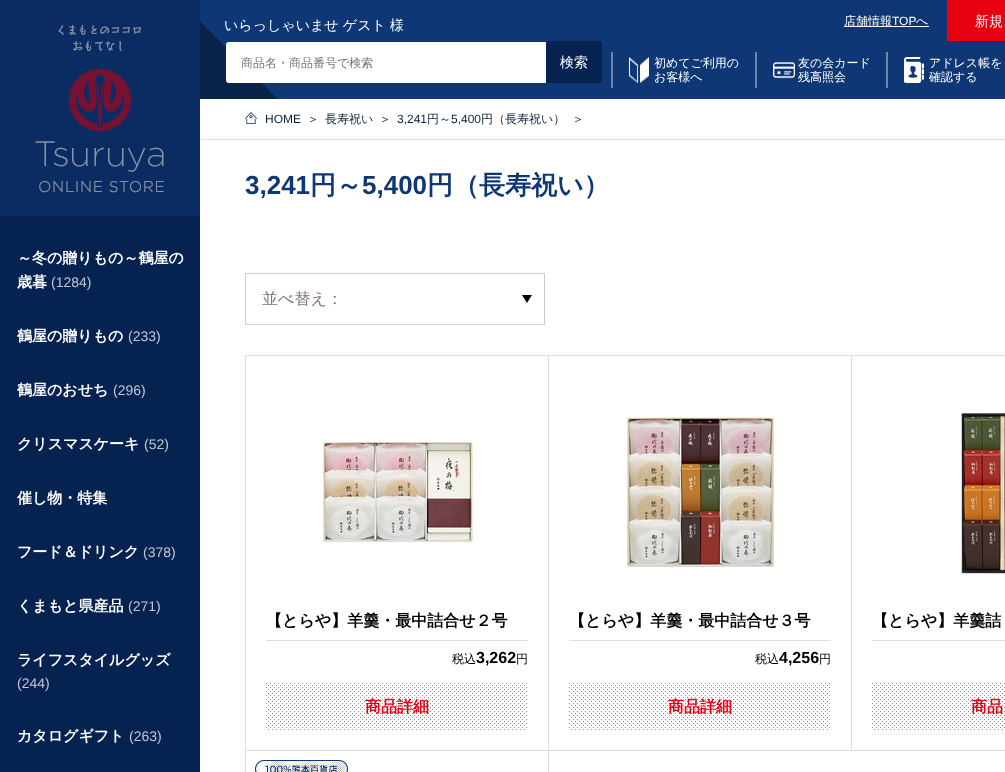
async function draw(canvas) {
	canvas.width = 1005;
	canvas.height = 772;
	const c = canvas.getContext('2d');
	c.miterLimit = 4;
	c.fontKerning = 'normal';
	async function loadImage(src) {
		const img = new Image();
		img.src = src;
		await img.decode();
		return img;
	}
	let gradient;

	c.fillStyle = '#062251';
	c.fillRect(0, 0, 1005, 772);
	gradient = c.createLinearGradient(425, 324, 975, -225);
	gradient.addColorStop(0, '#0a234b');
	gradient.addColorStop(0.07, '#0a234b');
	gradient.addColorStop(0.07, '#0f3775');
	gradient.addColorStop(1, '#0f3775');
	c.fillStyle = gradient;
	c.fillRect(200, 0, 805, 99);
	c.font = '500 14px WenQuanYi Zen Hei';
	c.fillStyle = '#fff';
	c.fillText('いらっしゃいませ ゲスト 様', 224, 30);
	c.fillRect(844, 26, 85, 1);
	c.font = '500 12px WenQuanYi Zen Hei';
	c.fillText('店舗情報', 844, 25);
	c.font = '12px Liberation Sans';
	c.fillText('TOP', 892, 25);
	c.font = '500 12px WenQuanYi Zen Hei';
	c.fillText('へ', 916, 25);
	c.fillStyle = '#e60012';
	c.fillRect(947, 0, 58, 41);
	c.font = '500 14px WenQuanYi Zen Hei';
	c.fillStyle = '#fff';
	c.fillText('新規', 975, 26);
	c.beginPath();
	c.roundRect(226, 42, 320, 41, [3, 0, 0, 3]);
	c.fill();
	c.font = '500 12px WenQuanYi Zen Hei';
	c.fillStyle = '#757575';
	c.fillText('商品名・商品番号で検索', 241, 67);
	c.fillStyle = '#062250';
	c.beginPath();
	c.roundRect(546, 41, 56, 42, [0, 3, 3, 0]);
	c.fill();
	c.font = '500 14px WenQuanYi Zen Hei';
	c.fillStyle = '#fff';
	c.fillText('検索', 560, 67);
	c.fillStyle = '#6f86ac';
	c.fillRect(611, 52, 2, 36);
	c.drawImage(await loadImage('img1.png'), 629, 57, 20, 26);
	c.font = '500 12px WenQuanYi Zen Hei';
	c.fillStyle = '#fff';
	c.fillText('初めてご利用の', 654, 67);
	c.fillText('お客様へ', 654, 81);
	c.fillStyle = '#6f86ac';
	c.fillRect(755, 52, 2, 36);
	c.drawImage(await loadImage('img2.png'), 773, 61, 22, 18);
	c.fillStyle = '#fff';
	c.fillText('友の会カード', 798, 67);
	c.fillText('残高照会', 798, 81);
	c.fillStyle = '#6f86ac';
	c.fillRect(886, 52, 2, 36);
	c.drawImage(await loadImage('img3.png'), 904, 57, 20, 26);
	c.fillStyle = '#fff';
	c.fillText('アドレス帳を', 929, 67);
	c.fillText('確認する', 929, 81);
	c.fillRect(200, 99, 805, 673);
	c.drawImage(await loadImage('img4.png'), 0, 0, 200, 216);
	c.font = 'bold 15px WenQuanYi Zen Hei';
	c.fillText('～冬の贈りもの～鶴屋の', 17, 263);
	c.fillText('歳暮', 17, 287);
	c.font = '14px Liberation Sans';
	c.fillStyle = '#c0c7d3';
	c.fillText('(1284)', 51, 287);
	c.font = 'bold 15px WenQuanYi Zen Hei';
	c.fillStyle = '#fff';
	c.fillText('鶴屋の贈りもの', 17, 341);
	c.font = '14px Liberation Sans';
	c.fillStyle = '#c0c7d3';
	c.fillText('(233)', 128, 341);
	c.font = 'bold 15px WenQuanYi Zen Hei';
	c.fillStyle = '#fff';
	c.fillText('鶴屋のおせち', 17, 395);
	c.font = '14px Liberation Sans';
	c.fillStyle = '#c0c7d3';
	c.fillText('(296)', 113, 395);
	c.font = 'bold 15px WenQuanYi Zen Hei';
	c.fillStyle = '#fff';
	c.fillText('クリスマスケーキ', 17, 449);
	c.font = '14px Liberation Sans';
	c.fillStyle = '#c0c7d3';
	c.fillText('(52)', 144, 449);
	c.font = 'bold 15px WenQuanYi Zen Hei';
	c.fillStyle = '#fff';
	c.fillText('催し物・特集', 17, 503);
	c.fillText('フード＆ドリンク', 17, 557);
	c.font = '14px Liberation Sans';
	c.fillStyle = '#c0c7d3';
	c.fillText('(378)', 143, 557);
	c.font = 'bold 15px WenQuanYi Zen Hei';
	c.fillStyle = '#fff';
	c.fillText('くまもと県産品', 17, 611);
	c.font = '14px Liberation Sans';
	c.fillStyle = '#c0c7d3';
	c.fillText('(271)', 128, 611);
	c.font = 'bold 15px WenQuanYi Zen Hei';
	c.fillStyle = '#fff';
	c.fillText('ライフスタイルグッズ', 17, 665);
	c.font = '14px Liberation Sans';
	c.fillStyle = '#c0c7d3';
	c.fillText('(244)', 17, 688);
	c.font = 'bold 15px WenQuanYi Zen Hei';
	c.fillStyle = '#fff';
	c.fillText('カタログギフト', 17, 741);
	c.font = '14px Liberation Sans';
	c.fillStyle = '#c0c7d3';
	c.fillText('(263)', 129, 741);
	c.fillStyle = '#ddd';
	c.fillRect(200, 139, 805, 1);
	c.drawImage(await loadImage('img5.png'), 245, 112, 12, 12);
	c.font = '12px Liberation Sans';
	c.fillStyle = '#0b243a';
	c.fillText('HOME', 265, 123);
	c.font = '500 12px WenQuanYi Zen Hei';
	for (const [text, x, y] of [
		['＞', 307, 123],
		['長寿祝い', 325, 123],
		['＞', 379, 123],
	]) {
		c.fillText(text, x, y);
	}
	c.font = '12px Liberation Sans';
	c.fillText('3,241', 397, 123);
	c.font = '500 12px WenQuanYi Zen Hei';
	c.fillText('円～', 427, 123);
	c.font = '12px Liberation Sans';
	c.fillText('5,400', 451, 123);
	c.font = '500 12px WenQuanYi Zen Hei';
	c.fillText('円（長寿祝い）', 481, 123);
	c.fillText('＞', 572, 123);
	c.font = 'bold 26px Liberation Sans';
	c.fillStyle = '#0f3675';
	c.fillText('3,241', 245, 194);
	c.font = 'bold 26px WenQuanYi Zen Hei';
	c.fillText('円～', 310, 194);
	c.font = 'bold 26px Liberation Sans';
	c.fillText('5,400', 362, 194);
	c.font = 'bold 26px WenQuanYi Zen Hei';
	c.fillText('円（長寿祝い）', 427, 194);
	c.strokeStyle = '#ccc';
	c.strokeRect(245.5, 273.5, 299, 51);
	c.font = '500 16px WenQuanYi Zen Hei';
	c.fillStyle = '#827272';
	c.fillText('並べ替え：', 262, 304);
	c.fillStyle = '#000';
	c.beginPath();
	c.moveTo(522, 295);
	c.lineTo(532, 295);
	c.lineTo(527, 303);
	c.closePath();
	c.fill();
	c.strokeStyle = '#dedede';
	c.strokeRect(245.5, 355.5, 303, 395);
	c.drawImage(await loadImage('img6.png'), 322, 441, 152, 102);
	c.font = 'bold 16px WenQuanYi Zen Hei';
	c.fillText('【とらや】羊羹・最中詰合せ２号', 266, 626);
	c.fillStyle = '#dedede';
	c.fillRect(266, 640, 262, 1);
	c.font = '500 12px WenQuanYi Zen Hei';
	c.fillStyle = '#000';
	c.fillText('税込', 452, 663);
	c.font = 'bold 16px Liberation Sans';
	c.fillText('3,262', 476, 663);
	c.font = '500 12px WenQuanYi Zen Hei';
	c.fillText('円', 516, 663);
	c.drawImage(await loadImage('img7.png'), 266, 683, 261, 47);
	c.font = 'bold 16px WenQuanYi Zen Hei';
	c.fillStyle = '#e60012';
	c.fillText('商品詳細', 365, 712);
	for (const [x, y, w, h, color] of [
		[549, 355, 456, 1, '#dedede'],
		[851, 355, 1, 396, '#dedede'],
		[549, 750, 456, 1, '#dedede'],
	]) {
		c.fillStyle = color;
		c.fillRect(x, y, w, h);
	}
	c.drawImage(await loadImage('img8.png'), 626, 416, 149, 152);
	c.fillStyle = '#000';
	c.fillText('【とらや】羊羹・最中詰合せ３号', 569, 626);
	c.fillStyle = '#dedede';
	c.fillRect(569, 640, 262, 1);
	c.font = '500 12px WenQuanYi Zen Hei';
	c.fillStyle = '#000';
	c.fillText('税込', 755, 663);
	c.font = 'bold 16px Liberation Sans';
	c.fillText('4,256', 779, 663);
	c.font = '500 12px WenQuanYi Zen Hei';
	c.fillText('円', 819, 663);
	c.drawImage(await loadImage('img7.png'), 569, 683, 261, 47);
	c.font = 'bold 16px WenQuanYi Zen Hei';
	c.fillStyle = '#e60012';
	c.fillText('商品詳細', 668, 712);
	c.drawImage(await loadImage('img9.png'), 961, 413, 44, 161);
	c.fillStyle = '#000';
	c.fillText('【とらや】羊羹詰', 872, 626);
	c.fillStyle = '#dedede';
	c.fillRect(872, 640, 133, 1);
	c.drawImage(await loadImage('img10.png'), 872, 683, 133, 47);
	c.fillStyle = '#e60012';
	c.fillText('商品', 971, 712);
	c.fillStyle = '#dedede';
	c.fillRect(548, 751, 1, 21);
	c.fillRect(245, 751, 1, 21);
	c.drawImage(await loadImage('img11.png'), 255, 760, 93, 12);
}

draw(document.querySelector('canvas'));
